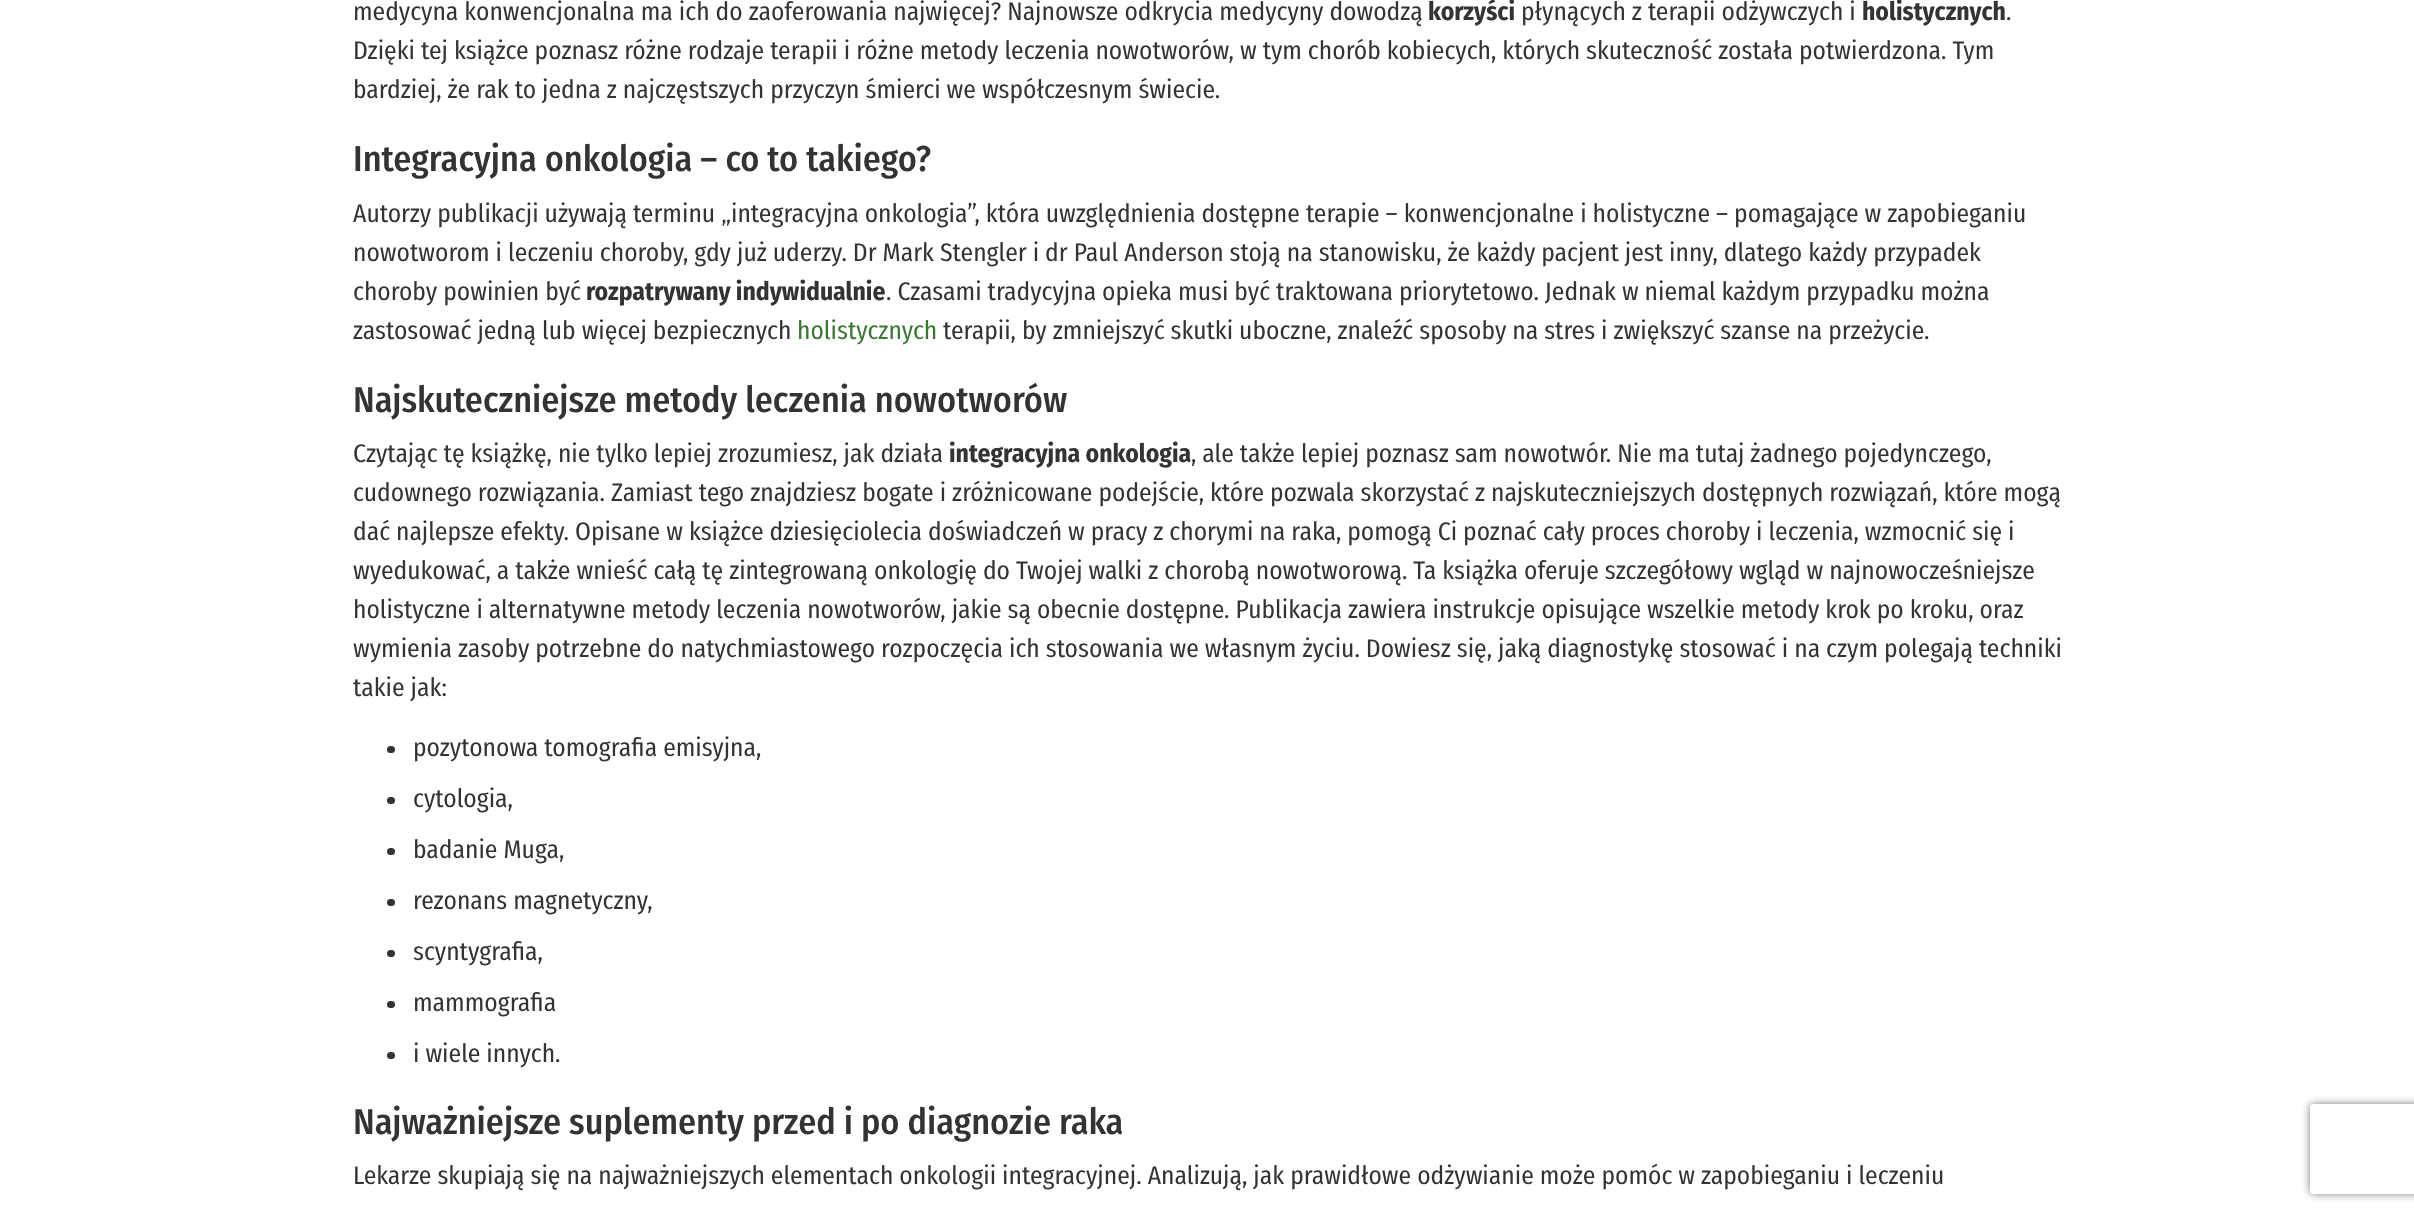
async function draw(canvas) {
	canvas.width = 2414;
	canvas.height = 1214;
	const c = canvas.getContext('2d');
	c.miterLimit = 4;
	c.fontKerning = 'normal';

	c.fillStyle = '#fff';
	c.fillRect(0, 0, 2414, 1214);
	c.font = '25.5px Fira Sans Condensed';
	c.fillStyle = '#333';
	c.fillText('medycyna konwencjonalna ma ich do zaoferowania najwięcej? Najnowsze odkrycia medycyny dowodzą', 353, 20);
	c.font = 'bold 25.5px Fira Sans Condensed';
	c.fillText('korzyści', 1428, 20);
	c.font = '25.5px Fira Sans Condensed';
	c.fillText('płynących z terapii odżywczych i', 1521, 20);
	c.font = 'bold 25.5px Fira Sans Condensed';
	c.fillText('holistycznych', 1862, 20);
	c.font = '25.5px Fira Sans Condensed';
	for (const [text, x, y] of [
		['.', 2006, 20],
		['Dzięki tej książce poznasz różne rodzaje terapii i różne metody leczenia nowotworów, w tym chorób kobiecych, których skuteczność została potwierdzona. Tym', 353, 59],
		['bardziej, że rak to jedna z najczęstszych przyczyn śmierci we współczesnym świecie.', 353, 98],
	]) {
		c.fillText(text, x, y);
	}
	c.font = '500 36px Fira Sans Condensed';
	c.fillText('Integracyjna onkologia – co to takiego?', 353, 171);
	c.font = '25.5px Fira Sans Condensed';
	for (const [text, x, y] of [
		['Autorzy publikacji używają terminu „integracyjna onkologia”, która uwzględnienia dostępne terapie – konwencjonalne i holistyczne – pomagające w zapobieganiu', 353, 222],
		['nowotworom i leczeniu choroby, gdy już uderzy. Dr Mark Stengler i dr Paul Anderson stoją na stanowisku, że każdy pacjent jest inny, dlatego każdy przypadek', 353, 261],
		['choroby powinien być', 353, 300],
	]) {
		c.fillText(text, x, y);
	}
	c.font = 'bold 25.5px Fira Sans Condensed';
	c.fillText('rozpatrywany indywidualnie', 586, 300);
	c.font = '25.5px Fira Sans Condensed';
	c.fillText('. Czasami tradycyjna opieka musi być traktowana priorytetowo. Jednak w niemal każdym przypadku można', 886, 300);
	c.fillText('zastosować jedną lub więcej bezpiecznych', 353, 339);
	c.fillStyle = '#387830';
	c.fillText('holistycznych', 797, 339);
	c.fillStyle = '#333';
	c.fillText('terapii, by zmniejszyć skutki uboczne, znaleźć sposoby na stres i zwiększyć szanse na przeżycie.', 943, 339);
	c.font = '500 36px Fira Sans Condensed';
	c.fillText('Najskuteczniejsze metody leczenia nowotworów', 353, 412);
	c.font = '25.5px Fira Sans Condensed';
	c.fillText('Czytając tę książkę, nie tylko lepiej zrozumiesz, jak działa', 353, 462);
	c.font = 'bold 25.5px Fira Sans Condensed';
	c.fillText('integracyjna onkologia', 949, 462);
	c.font = '25.5px Fira Sans Condensed';
	for (const [text, x, y] of [
		[', ale także lepiej poznasz sam nowotwór. Nie ma tutaj żadnego pojedynczego,', 1191, 462],
		['cudownego rozwiązania. Zamiast tego znajdziesz bogate i zróżnicowane podejście, które pozwala skorzystać z najskuteczniejszych dostępnych rozwiązań, które mogą', 353, 501],
		['dać najlepsze efekty. Opisane w książce dziesięciolecia doświadczeń w pracy z chorymi na raka, pomogą Ci poznać cały proces choroby i leczenia, wzmocnić się i', 353, 540],
		['wyedukować, a także wnieść całą tę zintegrowaną onkologię do Twojej walki z chorobą nowotworową. Ta książka oferuje szczegółowy wgląd w najnowocześniejsze', 353, 579],
		['holistyczne i alternatywne metody leczenia nowotworów, jakie są obecnie dostępne. Publikacja zawiera instrukcje opisujące wszelkie metody krok po kroku, oraz', 353, 618],
		['wymienia zasoby potrzebne do natychmiastowego rozpoczęcia ich stosowania we własnym życiu. Dowiesz się, jaką diagnostykę stosować i na czym polegają techniki', 353, 657],
		['takie jak:', 353, 696],
	]) {
		c.fillText(text, x, y);
	}
	c.beginPath();
	c.roundRect(387, 746, 8, 7, 3.5);
	c.fill();
	c.fillText('pozytonowa tomografia emisyjna,', 413, 756);
	c.beginPath();
	c.roundRect(387, 797, 8, 7, 3.5);
	c.fill();
	c.fillText('cytologia,', 413, 807);
	c.beginPath();
	c.roundRect(387, 848, 8, 7, 3.5);
	c.fill();
	c.fillText('badanie Muga,', 413, 858);
	c.beginPath();
	c.roundRect(387, 899, 8, 7, 3.5);
	c.fill();
	c.fillText('rezonans magnetyczny,', 413, 909);
	c.beginPath();
	c.roundRect(387, 950, 8, 7, 3.5);
	c.fill();
	c.fillText('scyntygrafia,', 413, 960);
	c.beginPath();
	c.roundRect(387, 1001, 8, 7, 3.5);
	c.fill();
	c.fillText('mammografia', 413, 1011);
	c.beginPath();
	c.roundRect(387, 1052, 8, 7, 3.5);
	c.fill();
	c.fillText('i wiele innych.', 413, 1062);
	c.font = '500 36px Fira Sans Condensed';
	c.fillText('Najważniejsze suplementy przed i po diagnozie raka', 353, 1134);
	c.font = '25.5px Fira Sans Condensed';
	c.fillText('Lekarze skupiają się na najważniejszych elementach onkologii integracyjnej. Analizują, jak prawidłowe odżywianie może pomóc w zapobieganiu i leczeniu', 353, 1184);
	c.save();
	c.beginPath();
	c.moveTo(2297, 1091);
	c.lineTo(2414, 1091);
	c.lineTo(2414, 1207);
	c.lineTo(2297, 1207);
	c.closePath();
	c.moveTo(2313, 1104);
	c.lineTo(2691, 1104);
	c.bezierCurveTo(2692.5, 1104, 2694, 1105.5, 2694, 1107);
	c.lineTo(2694, 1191);
	c.bezierCurveTo(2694, 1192.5, 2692.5, 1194, 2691, 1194);
	c.lineTo(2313, 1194);
	c.bezierCurveTo(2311.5, 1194, 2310, 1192.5, 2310, 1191);
	c.lineTo(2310, 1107);
	c.bezierCurveTo(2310, 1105.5, 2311.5, 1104, 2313, 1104);
	c.closePath();
	c.clip('evenodd');
	c.fillStyle = '#808080';
	c.filter = 'blur(4px)';
	c.beginPath();
	c.roundRect(2310, 1104, 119, 90, 3);
	c.fill();
	c.filter = 'none';
	c.restore();
}

draw(document.querySelector('canvas'));
